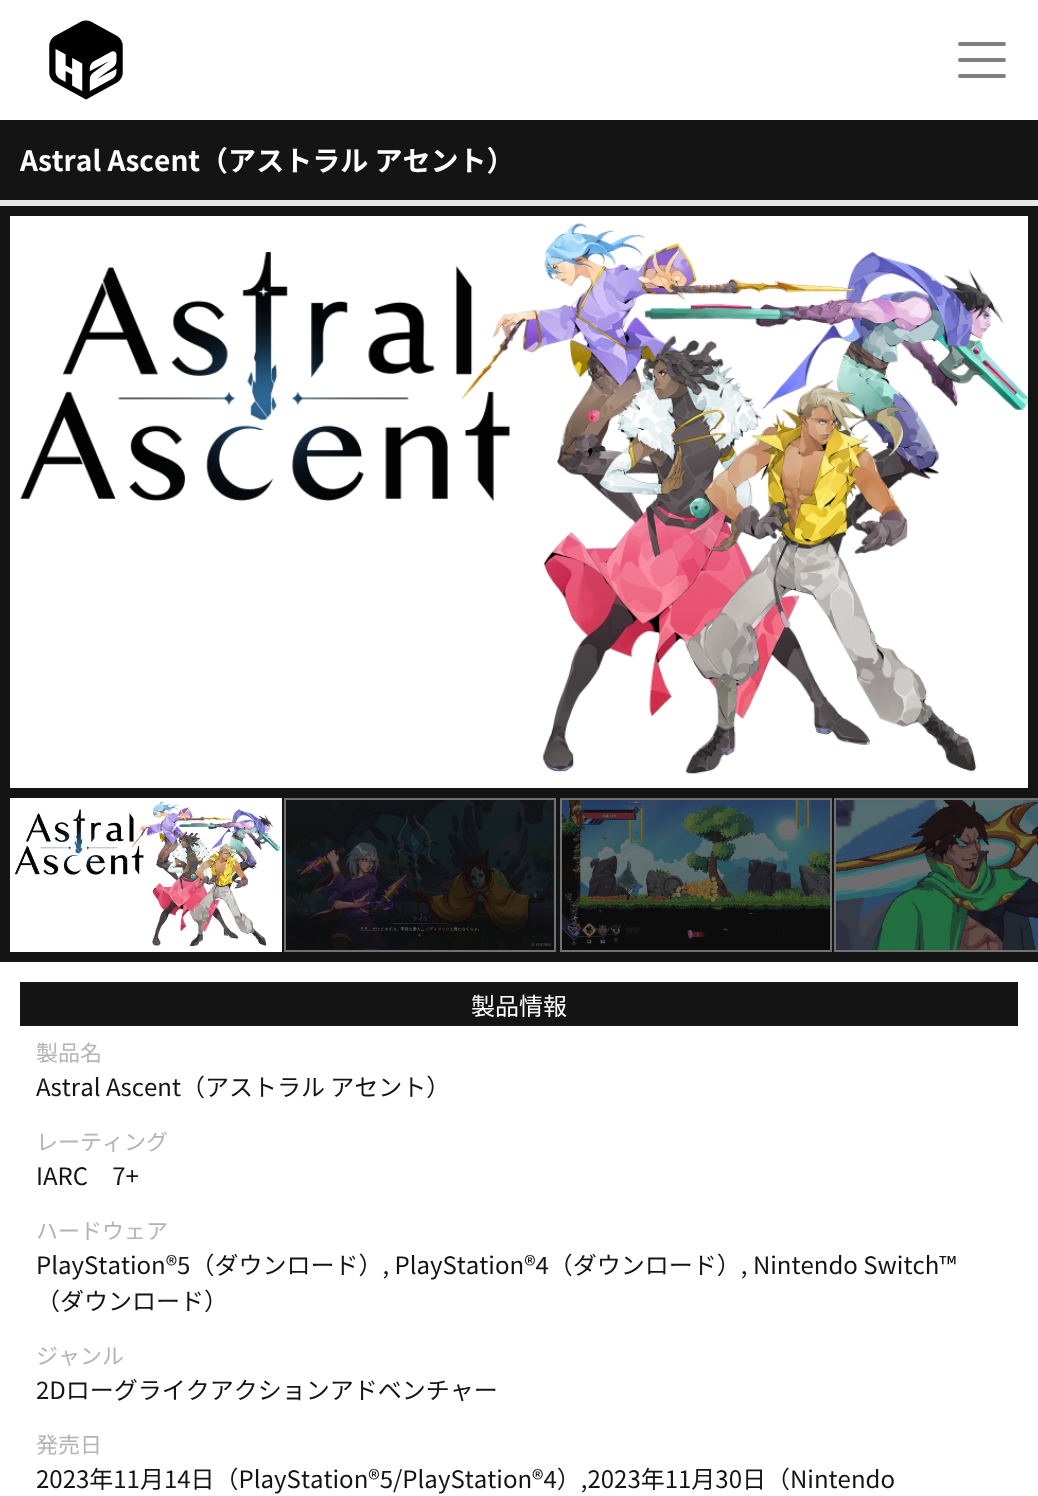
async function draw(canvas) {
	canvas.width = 1038;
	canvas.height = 1496;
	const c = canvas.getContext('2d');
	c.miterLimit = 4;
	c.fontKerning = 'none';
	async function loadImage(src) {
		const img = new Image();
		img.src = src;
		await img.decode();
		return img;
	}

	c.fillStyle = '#fff';
	c.fillRect(0, 0, 1038, 1496);
	c.drawImage(await loadImage('img1.png'), 49, 20, 74, 80);
	c.beginPath();
	c.moveTo(960, 44);
	c.lineTo(1004, 44);
	c.moveTo(960, 60);
	c.lineTo(1004, 60);
	c.moveTo(960, 76);
	c.lineTo(1004, 76);
	c.strokeStyle = '#808080';
	c.lineWidth = 4;
	c.lineCap = 'round';
	c.stroke();
	c.fillStyle = '#141414';
	c.fillRect(0, 120, 1038, 80);
	c.font = 'bold 28px Noto Sans JP';
	c.fillStyle = '#fff';
	c.fillText('Astral Ascent（アストラル アセント）', 20, 171);
	c.fillStyle = '#e7e7e7';
	c.fillRect(0, 200, 1038, 6);
	c.fillStyle = '#141414';
	c.fillRect(0, 206, 1038, 756);
	c.drawImage(await loadImage('img2.png'), 10, 216, 1018, 572);
	c.strokeStyle = '#fff';
	c.lineWidth = 2;
	c.strokeRect(11, 799, 270, 152);
	c.drawImage(await loadImage('img3.png'), 12, 800, 268, 150);
	c.strokeStyle = '#727272';
	c.strokeRect(285, 799, 270, 152);
	c.drawImage(await loadImage('img4.png'), 286, 800, 268, 150);
	c.strokeRect(561, 799, 270, 152);
	c.drawImage(await loadImage('img5.png'), 562, 800, 268, 150);
	c.strokeRect(835, 799, 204, 152);
	c.drawImage(await loadImage('img6.png'), 836, 800, 202, 150);
	c.fillRect(20, 982, 998, 44);
	c.font = '24px Noto Sans JP';
	c.fillStyle = '#fff';
	c.fillText('製品情報', 471, 1015);
	c.font = '22px Noto Sans JP';
	c.fillStyle = '#b4b4b4';
	c.fillText('製品名', 36, 1061);
	c.font = '24px Noto Sans JP';
	c.fillStyle = '#141414';
	c.fillText('Astral Ascent（アストラル アセント）', 36, 1096);
	c.font = '22px Noto Sans JP';
	c.fillStyle = '#b4b4b4';
	c.fillText('レーティング', 36, 1150);
	c.font = '24px Noto Sans JP';
	c.fillStyle = '#141414';
	c.fillText('IARC　7+', 36, 1185);
	c.font = '22px Noto Sans JP';
	c.fillStyle = '#b4b4b4';
	c.fillText('ハードウェア', 36, 1239);
	c.font = '24px Noto Sans JP';
	c.fillStyle = '#141414';
	c.fillText('PlayStation®5（ダウンロード）, PlayStation®4（ダウンロード）, Nintendo Switch™', 36, 1274);
	c.fillText('（ダウンロード）', 36, 1310);
	c.font = '22px Noto Sans JP';
	c.fillStyle = '#b4b4b4';
	c.fillText('ジャンル', 36, 1364);
	c.font = '24px Noto Sans JP';
	c.fillStyle = '#141414';
	c.fillText('2Dローグライクアクションアドベンチャー', 36, 1399);
	c.font = '22px Noto Sans JP';
	c.fillStyle = '#b4b4b4';
	c.fillText('発売日', 36, 1453);
	c.font = '24px Noto Sans JP';
	c.fillStyle = '#141414';
	c.fillText('2023年11月14日（PlayStation®5/PlayStation®4）,2023年11月30日（Nintendo', 36, 1488);
}

draw(document.querySelector('canvas'));
